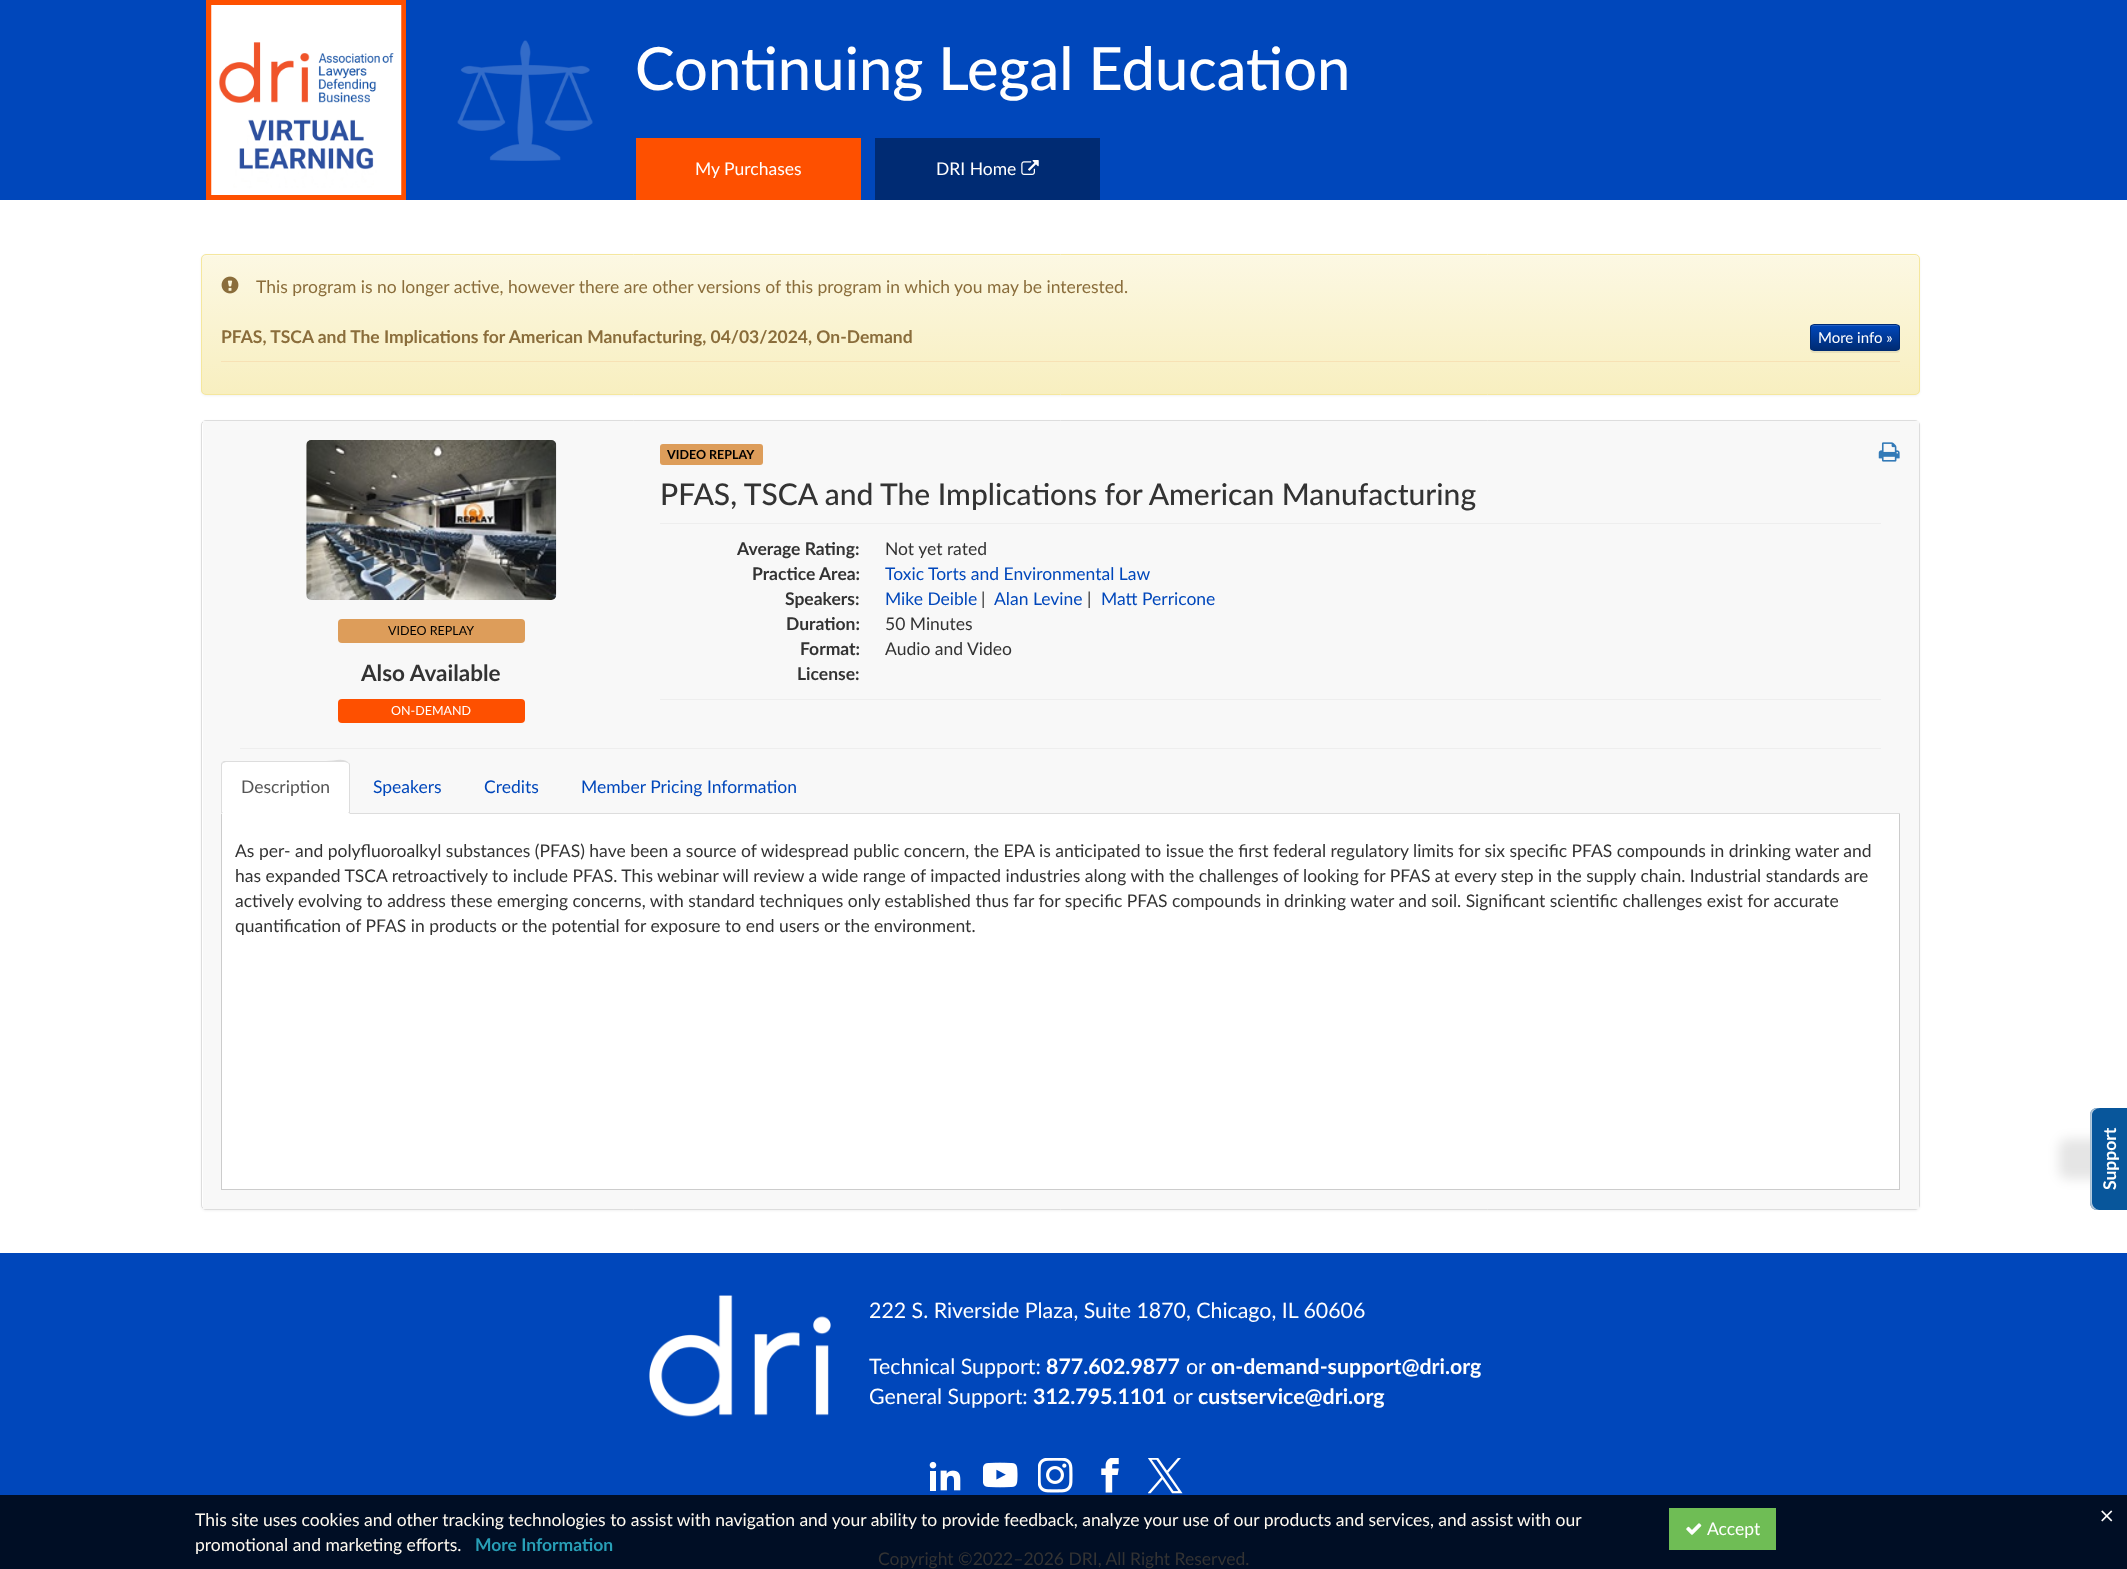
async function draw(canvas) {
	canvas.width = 2127;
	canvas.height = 1569;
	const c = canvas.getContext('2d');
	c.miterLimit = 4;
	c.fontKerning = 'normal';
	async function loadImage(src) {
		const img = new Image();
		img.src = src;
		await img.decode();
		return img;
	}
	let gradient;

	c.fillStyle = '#fff';
	c.fillRect(0, 0, 2127, 1569);
	c.fillStyle = '#0047bb';
	c.fillRect(0, 0, 2127, 200);
	c.fillStyle = '#fe5000';
	c.fillRect(206, 0, 200, 200);
	c.drawImage(await loadImage('img1.png'), 211, 5, 191, 190);
	c.drawImage(await loadImage('img2.png'), 457, 40, 136, 121);
	c.font = '500 59.5px Lato';
	c.fillStyle = '#fff';
	c.fillText('Continuing Legal Education', 635, 90);
	c.fillStyle = '#fe5000';
	c.fillRect(636, 138, 225, 62);
	c.font = '17.5px Lato';
	c.fillStyle = '#fff';
	c.fillText('My Purchases', 695, 175);
	c.fillStyle = '#002b73';
	c.fillRect(875, 138, 225, 62);
	c.fillStyle = '#fff';
	c.fillText('DRI Home', 936, 175);
	c.drawImage(await loadImage('img3.png'), 1021, 160, 18, 15);
	c.fillStyle = '#0000000d';
	c.filter = 'blur(1px)';
	c.beginPath();
	c.roundRect(201, 255, 1719, 141, 5);
	c.fill();
	c.filter = 'none';
	c.save();
	c.beginPath();
	c.roundRect(201, 254, 1719, 141, 5);
	c.clip();
	gradient = c.createLinearGradient(1061, 255, 1061, 394);
	gradient.addColorStop(0, '#fcf8e3');
	gradient.addColorStop(1, '#f8efc0');
	c.fillStyle = gradient;
	c.fillRect(201, 255, 1719, 139);
	c.restore();
	c.fillStyle = '#fdfaea';
	c.beginPath();
	c.moveTo(206, 256);
	c.lineTo(1915, 256);
	c.bezierCurveTo(1917, 256, 1919, 258, 1919, 260);
	c.lineTo(1919, 259);
	c.bezierCurveTo(1919, 257, 1917, 255, 1915, 255);
	c.lineTo(207, 255);
	c.bezierCurveTo(206, 255, 204, 256, 204, 257);
	c.closePath();
	c.fill();
	c.beginPath();
	c.roundRect(201.5, 254.5, 1718, 140, 4.5);
	c.strokeStyle = '#f5e79e';
	c.stroke();
	c.drawImage(await loadImage('img4.png'), 221, 276, 18, 18);
	c.fillStyle = '#8a6d3b';
	c.fillText('This program is no longer active, however there are other versions of this program in which you may be interested.', 256, 293);
	c.font = 'bold 17.5px Lato';
	c.fillText('PFAS, TSCA and The Implications for American Manufacturing, 04/03/2024, On-Demand', 221, 343);
	c.fillStyle = '#00000012';
	c.filter = 'blur(0.5px)';
	c.beginPath();
	c.roundRect(1810, 325, 90, 28, 4);
	c.fill();
	c.filter = 'none';
	c.save();
	c.beginPath();
	c.roundRect(1810, 324, 90, 27, 4);
	c.clip();
	gradient = c.createLinearGradient(1855, 325, 1855, 350);
	gradient.addColorStop(0, '#0047bb');
	gradient.addColorStop(1, '#002b73');
	c.fillStyle = gradient;
	c.fillRect(1810, 325, 90, 25);
	c.restore();
	c.fillStyle = '#ffffff26';
	c.beginPath();
	c.moveTo(1814, 326);
	c.lineTo(1896, 326);
	c.bezierCurveTo(1898, 326, 1899, 327, 1899, 329);
	c.bezierCurveTo(1899, 321, 1888, 325, 1883, 325);
	c.lineTo(1827, 325);
	c.bezierCurveTo(1822, 325, 1811, 321, 1811, 329);
	c.bezierCurveTo(1811, 327, 1812, 326, 1814, 326);
	c.closePath();
	c.fill();
	c.beginPath();
	c.roundRect(1810.5, 324.5, 89, 26, 3.5);
	c.strokeStyle = '#002b73';
	c.stroke();
	c.font = '15px Lato';
	c.fillStyle = '#fff';
	c.fillText('More info »', 1818, 343);
	c.fillStyle = '#f7e1b5';
	c.fillRect(221, 361, 1679, 1);
	c.fillStyle = '#0000000d';
	c.filter = 'blur(1px)';
	c.beginPath();
	c.roundRect(201, 421, 1719, 790, 5);
	c.fill();
	c.filter = 'none';
	c.fillStyle = '#fff';
	c.beginPath();
	c.roundRect(201.5, 420.5, 1718, 789, 4.5);
	c.fill();
	c.strokeStyle = '#ddd';
	c.stroke();
	c.fillStyle = '#f8f8f8';
	c.fillRect(203, 421, 1716, 788);
	c.fillStyle = '#fff';
	c.beginPath();
	c.roundRect(306, 440, 250, 160, 5);
	c.fill();
	c.drawImage(await loadImage('img5.png'), 306, 440, 251, 160);
	c.fillStyle = '#dd9d5a';
	c.beginPath();
	c.roundRect(338, 619, 187, 24, 4);
	c.fill();
	c.font = '12.5px Lato';
	c.fillStyle = '#000';
	c.fillText('VIDEO REPLAY', 388, 635);
	c.font = 'bold 22.5px Lato';
	c.fillStyle = '#333';
	c.fillText('Also Available', 361, 681);
	c.fillStyle = '#fe5000';
	c.beginPath();
	c.roundRect(338, 699, 187, 24, 4);
	c.fill();
	c.font = '12.5px Lato';
	c.fillStyle = '#fff';
	c.fillText('ON-DEMAND', 391, 715);
	c.fillStyle = '#dd9d5a';
	c.beginPath();
	c.roundRect(660, 444, 103, 21, 3);
	c.fill();
	c.font = 'bold 12.5px Lato';
	c.fillStyle = '#000';
	c.fillText('VIDEO REPLAY', 667, 459);
	c.font = '500 30px Lato';
	c.fillStyle = '#333';
	c.fillText('PFAS, TSCA and The Implications for American Manufacturing', 660, 505);
	c.fillStyle = '#eee';
	c.fillRect(660, 523, 1221, 1);
	c.font = 'bold 17.5px Lato';
	c.fillStyle = '#333';
	c.fillText('Average Rating:', 737, 555);
	c.font = '17.5px Lato';
	c.fillText('Not yet rated', 885, 555);
	c.font = 'bold 17.5px Lato';
	c.fillText('Practice Area:', 752, 580);
	c.font = '17.5px Lato';
	c.fillStyle = '#0047bb';
	c.fillText('Toxic Torts and Environmental Law', 885, 580);
	c.font = 'bold 17.5px Lato';
	c.fillStyle = '#333';
	c.fillText('Speakers:', 785, 605);
	c.font = '17.5px Lato';
	c.fillStyle = '#0047bb';
	c.fillText('Mike Deible', 885, 605);
	c.fillStyle = '#333';
	c.fillText('|', 981, 605);
	c.fillStyle = '#0047bb';
	c.fillText('Alan Levine', 994, 605);
	c.fillStyle = '#333';
	c.fillText('|', 1087, 605);
	c.fillStyle = '#0047bb';
	c.fillText('Matt Perricone', 1101, 605);
	c.font = 'bold 17.5px Lato';
	c.fillStyle = '#333';
	c.fillText('Duration:', 786, 630);
	c.font = '17.5px Lato';
	c.fillText('50 Minutes', 885, 630);
	c.font = 'bold 17.5px Lato';
	c.fillText('Format:', 800, 655);
	c.font = '17.5px Lato';
	c.fillText('Audio and Video', 885, 655);
	c.font = 'bold 17.5px Lato';
	c.fillText('License:', 797, 680);
	c.fillStyle = '#eee';
	c.fillRect(660, 699, 1221, 1);
	c.drawImage(await loadImage('img6.png'), 1878, 442, 22, 20);
	for (const [x, y, w, h, color] of [
		[240, 748, 1641, 1, '#eee'],
		[221, 1189, 1679, 1, '#ccc'],
		[350, 813, 1550, 1, '#ddd'],
	]) {
		c.fillStyle = color;
		c.fillRect(x, y, w, h);
	}
	c.fillStyle = '#fff';
	c.beginPath();
	c.roundRect(221, 761, 129, 53, [5, 5, 0, 0]);
	c.fill();
	c.fillStyle = '#ddd';
	c.beginPath();
	c.moveTo(226, 762);
	c.lineTo(223, 763);
	c.lineTo(222, 762);
	c.lineTo(224, 761);
	c.lineTo(326, 761);
	c.bezierCurveTo(334, 761, 344, 757, 349, 763);
	c.lineTo(348, 763);
	c.lineTo(345, 762);
	c.closePath();
	c.fill();
	c.beginPath();
	c.moveTo(350, 814);
	c.lineTo(350, 766);
	c.bezierCurveTo(350, 765, 350, 763, 349, 763);
	c.lineTo(348, 763);
	c.bezierCurveTo(349, 764, 349, 765, 349, 766);
	c.lineTo(349, 812);
	c.lineTo(348, 812);
	c.closePath();
	c.fill();
	c.beginPath();
	c.moveTo(221, 814);
	c.lineTo(221, 764);
	c.lineTo(222, 762);
	c.lineTo(223, 763);
	c.bezierCurveTo(222, 764, 222, 765, 222, 766);
	c.lineTo(222, 812);
	c.lineTo(223, 812);
	c.closePath();
	c.fill();
	c.font = '17.5px Lato';
	c.fillStyle = '#555';
	c.fillText('Description', 241, 793);
	c.fillStyle = '#0047bb';
	for (const [text, x, y] of [
		['Speakers', 373, 793],
		['Credits', 484, 793],
		['Member Pricing Information', 581, 793],
	]) {
		c.fillText(text, x, y);
	}
	for (const [x, y, w, h, color] of [
		[222, 814, 1677, 375, '#fff'],
		[1899, 814, 1, 375, '#ccc'],
		[221, 814, 1, 375, '#ccc'],
	]) {
		c.fillStyle = color;
		c.fillRect(x, y, w, h);
	}
	c.fillStyle = '#333';
	for (const [text, x, y] of [
		['As per- and polyfluoroalkyl substances (PFAS) have been a source of widespread public concern, the EPA is anticipated to issue the first federal regulatory limits for six specific PFAS compounds in drinking water and', 235, 857],
		['has expanded TSCA retroactively to include PFAS. This webinar will review a wide range of impacted industries along with the challenges of looking for PFAS at every step in the supply chain. Industrial standards are', 235, 882],
		['actively evolving to address these emerging concerns, with standard techniques only established thus far for specific PFAS compounds in drinking water and soil. Significant scientific challenges exist for accurate', 235, 907],
		['quantification of PFAS in products or the potential for exposure to end users or the environment.', 235, 932],
	]) {
		c.fillText(text, x, y);
	}
	c.fillStyle = '#0000001a';
	c.filter = 'blur(6px)';
	c.beginPath();
	c.roundRect(2059, 1139, 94, 40, 8);
	c.fill();
	c.filter = 'none';
	c.fillStyle = '#08569b';
	c.beginPath();
	c.moveTo(2090, 1202);
	c.lineTo(2090, 1115);
	c.bezierCurveTo(2090, 1111, 2093, 1108, 2097, 1108);
	c.lineTo(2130, 1108);
	c.lineTo(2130, 1210);
	c.lineTo(2097, 1210);
	c.bezierCurveTo(2093, 1210, 2090, 1207, 2090, 1202);
	c.closePath();
	c.fill();
	c.fillStyle = '#ffffffb3';
	c.beginPath();
	c.moveTo(2092, 1202);
	c.lineTo(2092, 1115);
	c.bezierCurveTo(2092, 1111, 2096, 1108, 2100, 1108);
	c.lineTo(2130, 1108);
	c.lineTo(2098, 1108);
	c.bezierCurveTo(2093, 1108, 2090, 1111, 2090, 1115);
	c.lineTo(2090, 1202);
	c.bezierCurveTo(2090, 1207, 2093, 1210, 2098, 1210);
	c.lineTo(2099, 1210);
	c.bezierCurveTo(2095, 1209, 2092, 1206, 2092, 1202);
	c.closePath();
	c.fill();
	c.fillStyle = '#00000014';
	c.beginPath();
	c.moveTo(2091, 1202);
	c.lineTo(2091, 1115);
	c.bezierCurveTo(2091, 1111, 2095, 1108, 2099, 1108);
	c.lineTo(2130, 1108);
	c.lineTo(2098, 1108);
	c.bezierCurveTo(2093, 1108, 2090, 1111, 2090, 1115);
	c.lineTo(2090, 1202);
	c.bezierCurveTo(2090, 1207, 2093, 1210, 2098, 1210);
	c.bezierCurveTo(2094, 1209, 2091, 1206, 2091, 1202);
	c.closePath();
	c.fill();
	c.font = 'bold 17.5px Lato';
	c.fillStyle = '#fff';
	c.save();
	c.translate(2116, 1190);
	c.rotate(-90 * Math.PI / 180);
	c.fillText('Support', 0, 0);
	c.restore();
	c.fillStyle = '#0047bb';
	c.fillRect(0, 1253, 2127, 242);
	c.fillStyle = '#000e25';
	c.fillRect(0, 1495, 2127, 74);
	c.drawImage(await loadImage('img7.png'), 649, 1295, 182, 122);
	c.font = '21.35px Lato';
	c.fillStyle = '#fff';
	c.fillText('222 S. Riverside Plaza, Suite 1870, Chicago, IL 60606', 869, 1318);
	c.fillText('Technical Support:', 869, 1374);
	c.font = 'bold 21.35px Lato';
	c.fillText('877.602.9877', 1046, 1374);
	c.font = '21.35px Lato';
	c.fillText('or', 1186, 1374);
	c.font = 'bold 21.35px Lato';
	c.fillText('on-demand-support@dri.org', 1211, 1374);
	c.font = '21.35px Lato';
	c.fillText('General Support:', 869, 1404);
	c.font = 'bold 21.35px Lato';
	c.fillText('312.795.1101', 1033, 1404);
	c.font = '21.35px Lato';
	c.fillText('or', 1173, 1404);
	c.font = 'bold 21.35px Lato';
	c.fillText('custservice@dri.org', 1198, 1404);
	c.drawImage(await loadImage('img8.png'), 929, 1461, 32, 30);
	c.drawImage(await loadImage('img9.png'), 983, 1462, 35, 26);
	c.drawImage(await loadImage('img10.png'), 1038, 1458, 35, 35);
	c.drawImage(await loadImage('img11.png'), 1101, 1458, 18, 35);
	c.drawImage(await loadImage('img12.png'), 1148, 1458, 35, 36);
	c.font = '17.5px Lato';
	c.fillStyle = '#333';
	c.fillText('Copyright ©2022–2026 DRI, All Right Reserved.', 878, 1565);
	c.fillStyle = '#fffaf0';
	c.fillText('This site uses cookies and other tracking technologies to assist with navigation and your ability to provide feedback, analyze your use of our products and services, and assist with our', 195, 1526);
	c.fillText('promotional and marketing efforts.', 195, 1551);
	c.font = 'bold 17.5px Lato';
	c.fillStyle = '#289fb7';
	c.fillText('More Information', 475, 1551);
	c.fillStyle = '#6fbd55';
	c.fillRect(1669, 1508, 107, 42);
	c.drawImage(await loadImage('img13.png'), 1686, 1523, 16, 12);
	c.font = '17.5px Lato';
	c.fillStyle = '#fff';
	c.fillText('Accept', 1707, 1535);
	c.drawImage(await loadImage('img14.png'), 2101, 1510, 12, 12);
}

draw(document.querySelector('canvas'));
